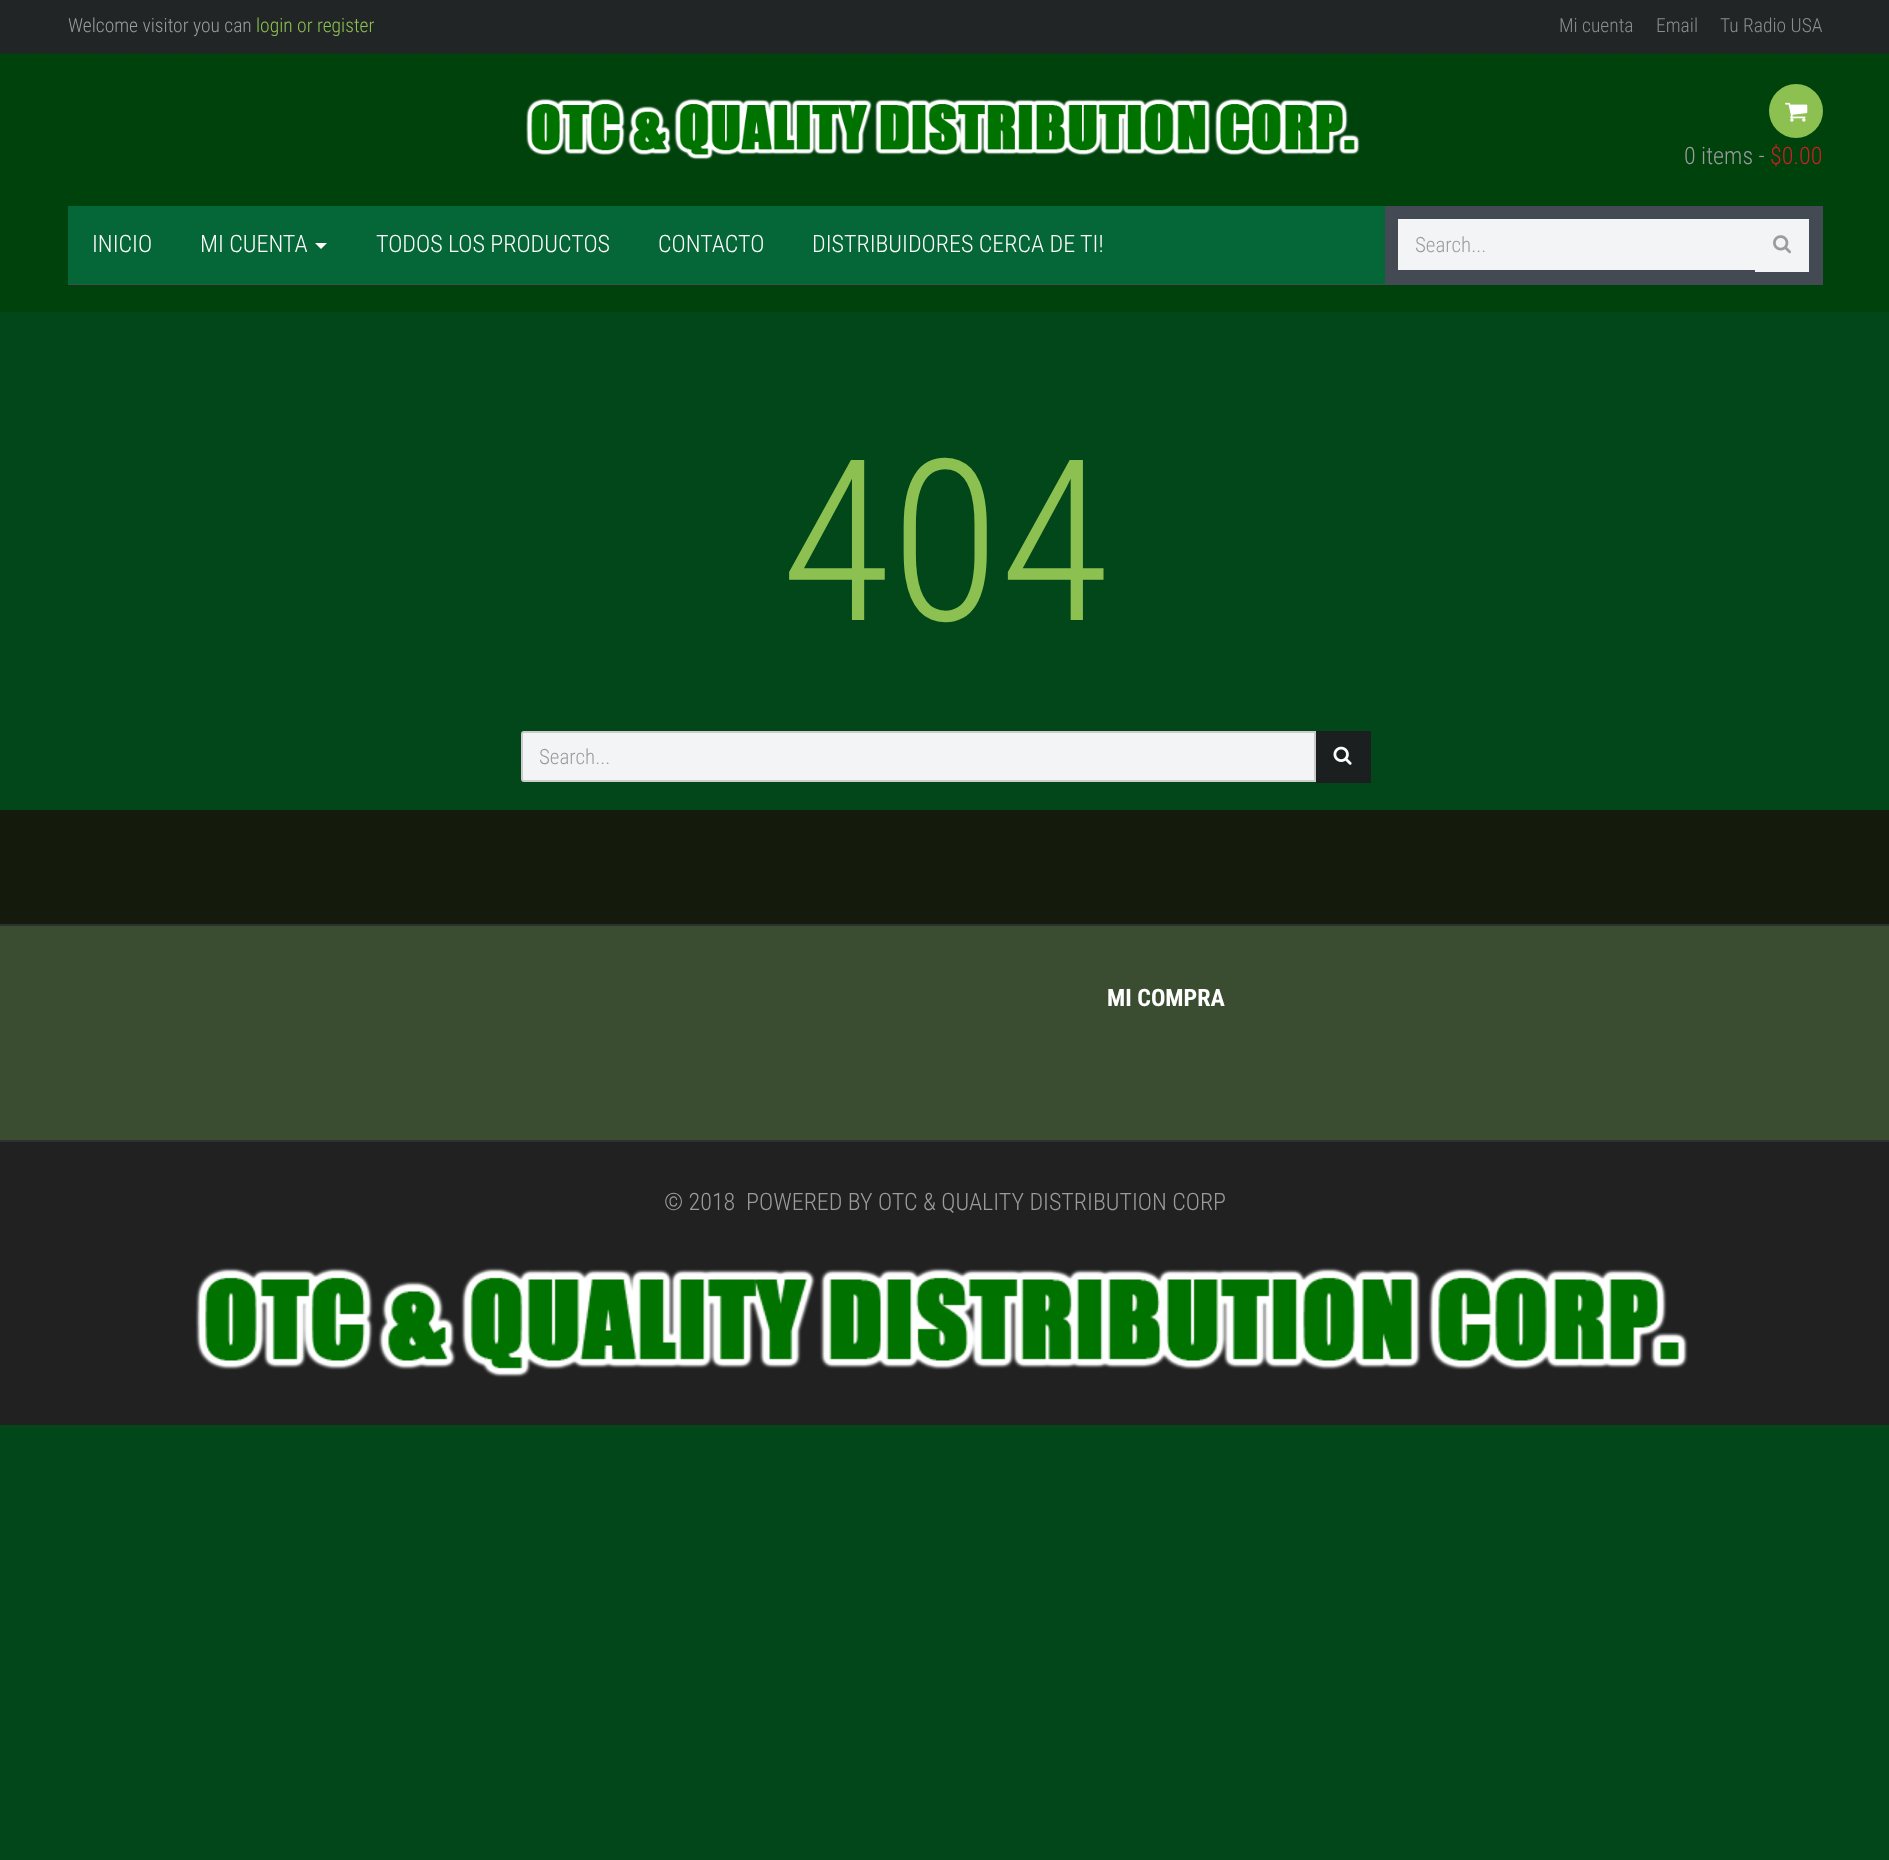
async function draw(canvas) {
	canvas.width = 1889;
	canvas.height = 1860;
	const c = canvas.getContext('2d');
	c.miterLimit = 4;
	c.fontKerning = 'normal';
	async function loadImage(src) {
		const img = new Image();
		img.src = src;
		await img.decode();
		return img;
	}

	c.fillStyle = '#014719';
	c.fillRect(0, 0, 1889, 1860);
	c.fillStyle = '#212525';
	c.fillRect(0, 0, 1889, 53);
	c.font = '300 19.5px Roboto Condensed';
	c.fillStyle = '#9c9c9c';
	c.fillText('Welcome visitor you can', 68, 32);
	c.fillStyle = '#8cc152';
	c.fillText('login or register', 256, 32);
	c.fillStyle = '#8c8c8c';
	for (const [text, x, y] of [
		['Mi cuenta', 1559, 32],
		['Email', 1656, 32],
		['Tu Radio USA', 1720, 32],
	]) {
		c.fillText(text, x, y);
	}
	c.fillStyle = '#00420c';
	c.fillRect(0, 53, 1889, 259);
	c.beginPath();
	c.moveTo(0, 53);
	c.lineTo(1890, 53);
	c.strokeStyle = '#212525';
	c.lineWidth = 1.5;
	c.setLineDash([1.5, 1.5]);
	c.stroke();
	c.drawImage(await loadImage('img1.png'), 526, 98, 834, 62);
	c.fillStyle = '#8cc152';
	c.beginPath();
	c.arc(1796, 111, 27, 0, 2 * Math.PI);
	c.fill();
	c.drawImage(await loadImage('img2.png'), 1785, 102, 23, 20);
	c.font = '300 24px Roboto Condensed';
	c.fillStyle = '#9c9c9c';
	c.fillText('0 items -', 1684, 164);
	c.fillStyle = '#cb2027';
	c.fillText('$0.00', 1770, 164);
	c.fillStyle = '#434a54';
	c.fillRect(68, 206, 1755, 79);
	c.fillStyle = '#056637';
	c.fillRect(68, 206, 1317, 78);
	c.fillStyle = '#fff';
	c.fillText('INICIO', 92, 252);
	c.fillText('MI CUENTA', 200, 252);
	c.beginPath();
	c.moveTo(315, 243);
	c.lineTo(327, 243);
	c.lineTo(321, 249);
	c.closePath();
	c.fill();
	for (const [text, x, y] of [
		['TODOS LOS PRODUCTOS', 376, 252],
		['CONTACTO', 658, 252],
		['DISTRIBUIDORES CERCA DE TI!', 812, 252],
	]) {
		c.fillText(text, x, y);
	}
	c.fillStyle = '#f3f4f5';
	c.fillRect(1398, 219, 357, 51);
	c.font = '300 21px Roboto Condensed';
	c.fillStyle = '#9c9c9c';
	c.fillText('Search...', 1415, 252);
	c.fillStyle = '#f3f4f5';
	c.fillRect(1755, 219, 54, 53);
	c.drawImage(await loadImage('img3.png'), 1773, 235, 18, 19);
	c.font = '300 225px Roboto Condensed';
	c.fillStyle = '#8cc152';
	c.fillText('404', 781, 620);
	c.fillStyle = '#f3f4f5';
	c.beginPath();
	c.roundRect(522, 732, 793, 49, [2, 0, 0, 2]);
	c.fill();
	c.strokeStyle = '#ccc';
	c.lineWidth = 2;
	c.setLineDash([]);
	c.stroke();
	c.font = '300 21px Roboto Condensed';
	c.fillStyle = '#9c9c9c';
	c.fillText('Search...', 539, 764);
	c.fillStyle = '#1c1f1f';
	c.fillRect(1316, 731, 55, 52);
	c.drawImage(await loadImage('img4.png'), 1333, 746, 19, 19);
	for (const [x, y, w, h, color] of [
		[0, 810, 1889, 114, '#141a0c'],
		[0, 926, 1889, 214, '#3b4d30'],
		[0, 924, 1889, 2, '#2c3131'],
		[0, 1140, 1889, 2, '#2c3131'],
	]) {
		c.fillStyle = color;
		c.fillRect(x, y, w, h);
	}
	c.font = 'bold 24px Roboto Condensed';
	c.fillStyle = '#fff';
	c.fillText('MI COMPRA', 1107, 1006);
	c.fillStyle = '#212121';
	c.fillRect(0, 1142, 1889, 283);
	c.font = '300 24px Roboto Condensed';
	c.fillStyle = '#9c9c9c';
	c.fillText('© 2018  POWERED BY OTC & QUALITY DISTRIBUTION CORP', 664, 1210);
	c.drawImage(await loadImage('img5.png'), 195, 1267, 1493, 111);
}

draw(document.querySelector('canvas'));
